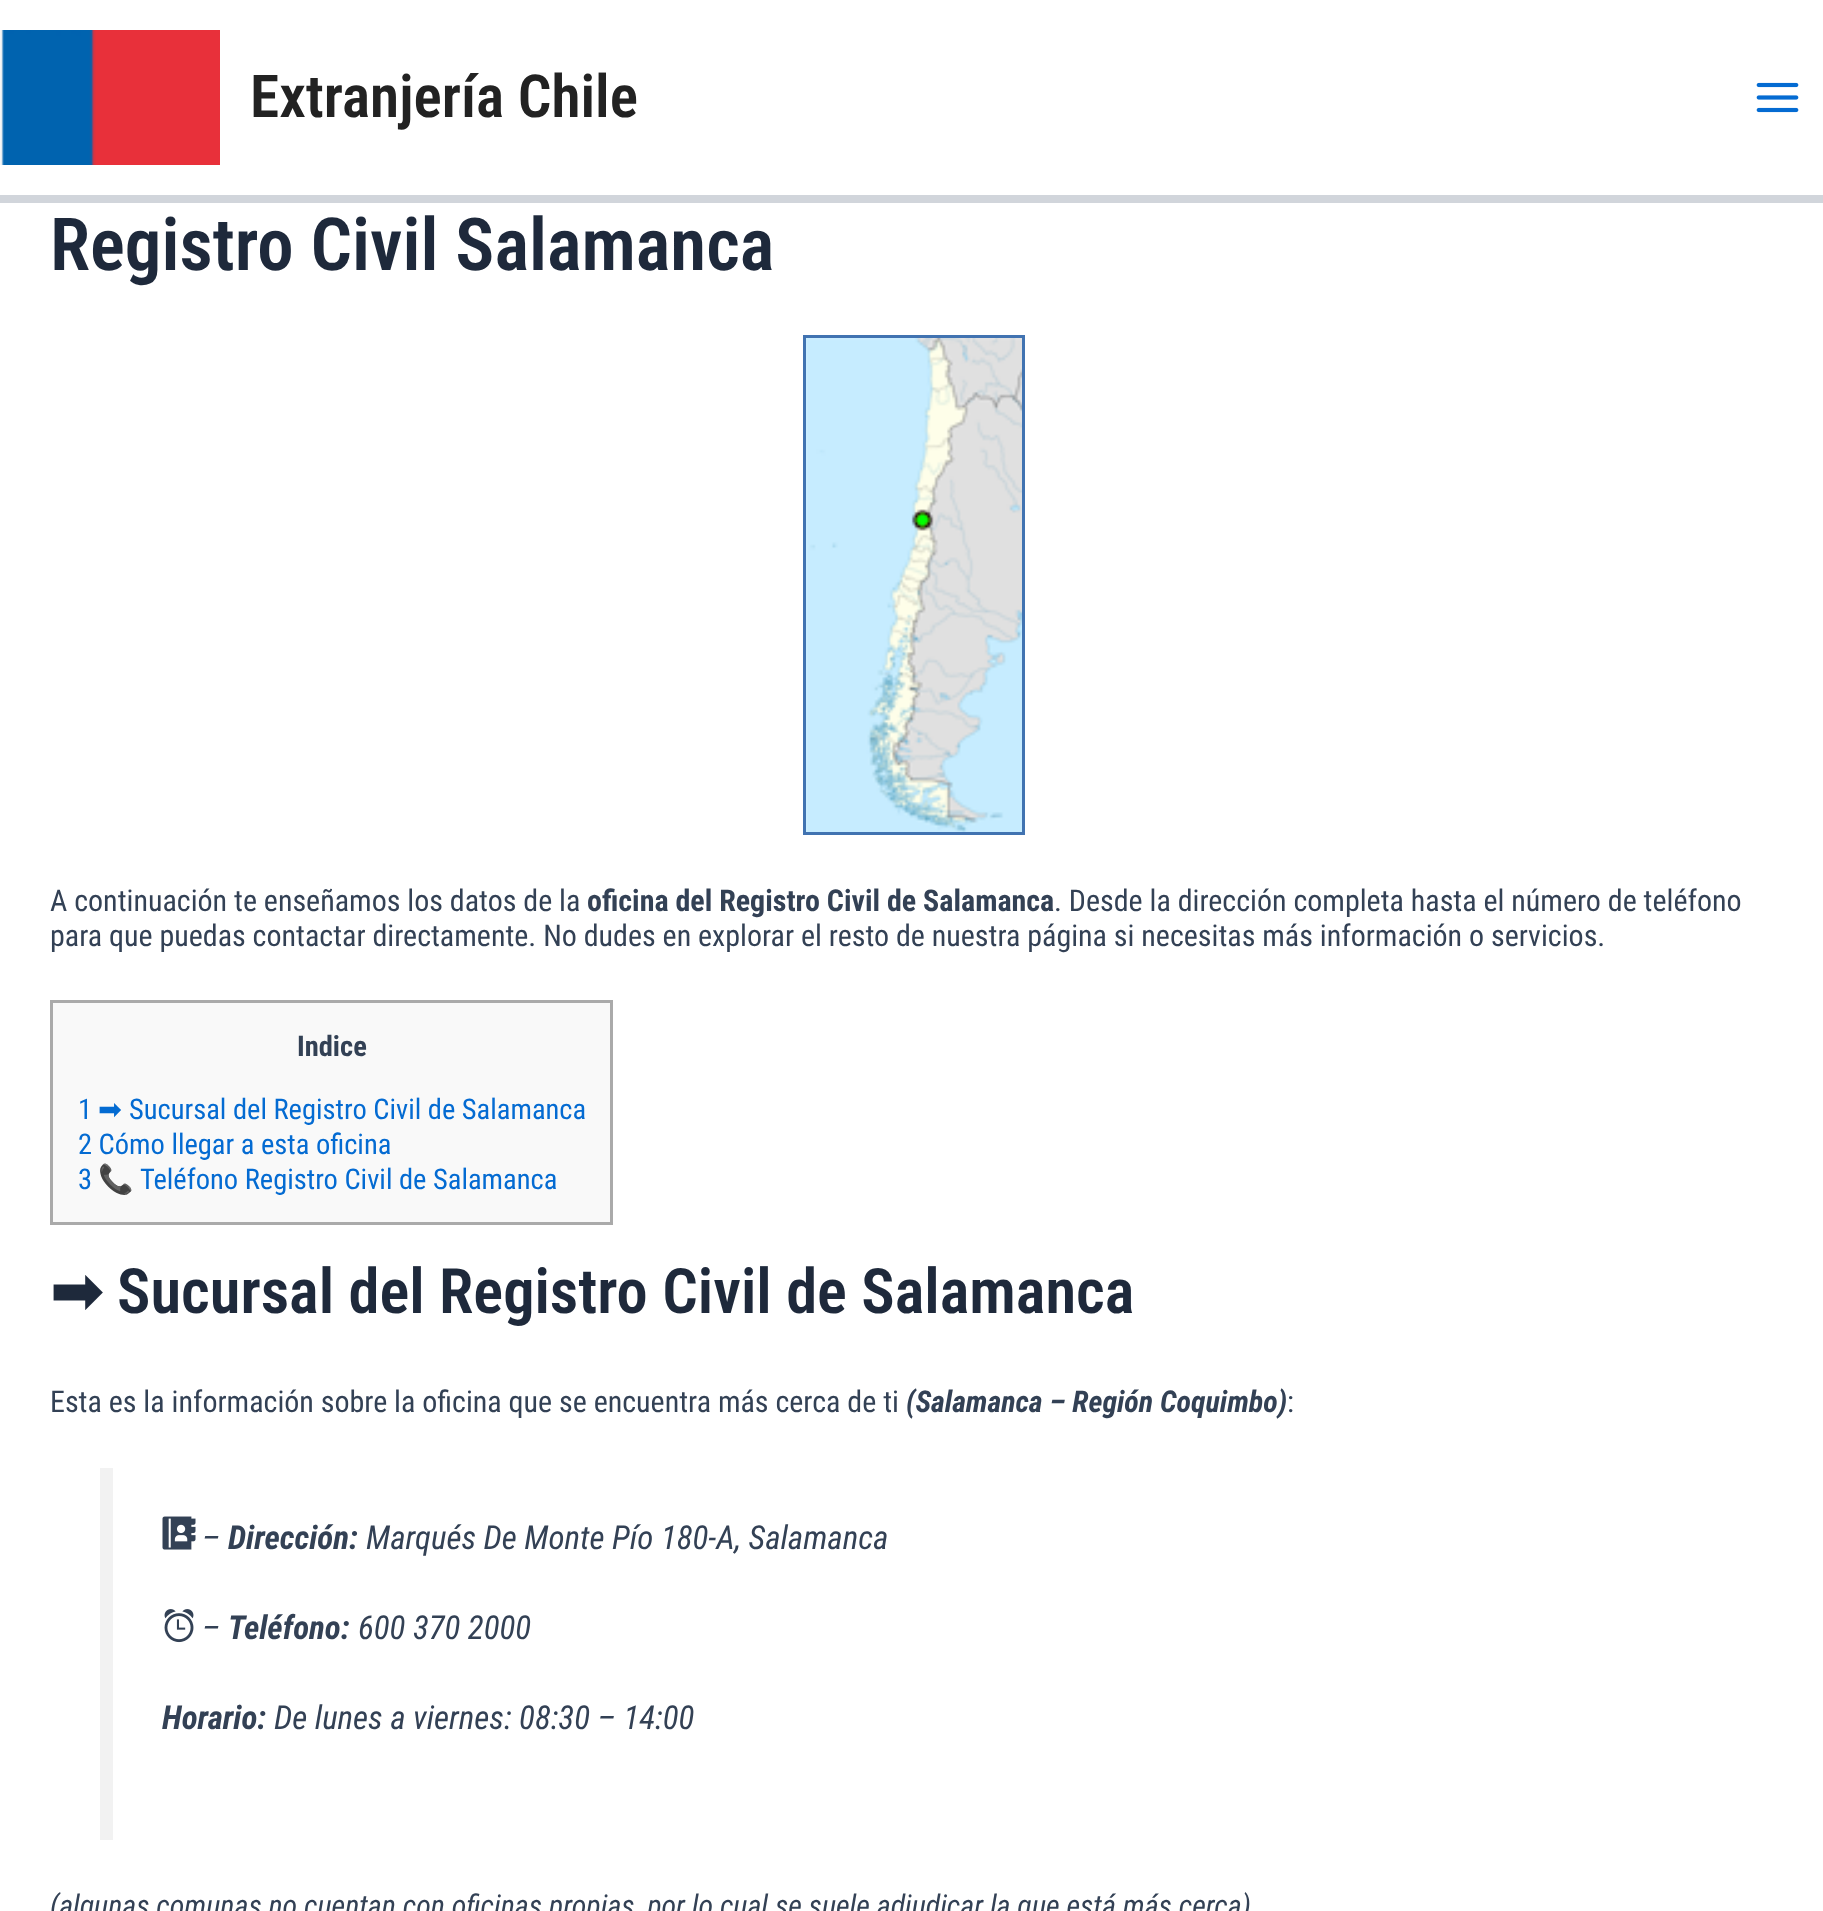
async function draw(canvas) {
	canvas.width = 1823;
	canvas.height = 1911;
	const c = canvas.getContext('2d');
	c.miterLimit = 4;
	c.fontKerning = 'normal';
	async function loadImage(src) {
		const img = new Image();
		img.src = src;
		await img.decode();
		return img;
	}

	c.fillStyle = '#fff';
	c.fillRect(0, 0, 1823, 1911);
	c.fillStyle = '#d1d5db';
	c.fillRect(0, 195, 1823, 8);
	c.drawImage(await loadImage('img1.png'), 0, 30, 220, 135);
	c.font = '600 59.25px Roboto Condensed';
	c.fillStyle = '#222';
	c.fillText('Extranjería Chile', 250, 117);
	c.drawImage(await loadImage('img2.png'), 1756, 82, 43, 31);
	c.font = '600 73px Roboto Condensed';
	c.fillStyle = '#1e293b';
	c.fillText('Registro Civil Salamanca', 50, 270);
	c.drawImage(await loadImage('img3.png'), 806, 338, 216, 494);
	c.strokeStyle = '#4173b1';
	c.lineWidth = 3;
	c.strokeRect(804.5, 336.5, 219, 497);
	c.drawImage(await loadImage('img4.png'), 911, 509, 23, 22);
	c.font = '30px Roboto Condensed';
	c.fillStyle = '#334155';
	c.fillText('A continuación te enseñamos los datos de la', 50, 911);
	c.font = 'bold 30px Roboto Condensed';
	c.fillText('oficina del Registro Civil de Salamanca', 587, 911);
	c.font = '30px Roboto Condensed';
	c.fillText('. Desde la dirección completa hasta el número de teléfono', 1054, 911);
	c.fillText('para que puedas contactar directamente. No dudes en explorar el resto de nuestra página si necesitas más información o servicios.', 50, 946);
	c.fillStyle = '#f9f9f9';
	c.beginPath();
	c.rect(51.5, 1001.5, 560, 222);
	c.fill();
	c.strokeStyle = '#aaa';
	c.stroke();
	c.font = 'bold 28.5px Roboto Condensed';
	c.fillStyle = '#334155';
	c.fillText('Indice', 297, 1056);
	c.font = '28.5px Roboto Condensed';
	c.fillStyle = '#046bd2';
	c.fillText('1', 78, 1119);
	c.font = '28.5px DejaVu Sans';
	c.fillText('➡', 98, 1119);
	c.font = '28.5px Roboto Condensed';
	for (const [text, x, y] of [
		['Sucursal del Registro Civil de Salamanca', 129, 1119],
		['2 Cómo llegar a esta oficina', 78, 1154],
		['3', 78, 1189],
	]) {
		c.fillText(text, x, y);
	}
	c.font = '28.5px Noto Color Emoji';
	c.fillText('📞', 98, 1189);
	c.font = '28.5px Roboto Condensed';
	c.fillText('Teléfono Registro Civil de Salamanca', 140, 1189);
	c.font = 'bold 62.5px DejaVu Sans';
	c.fillStyle = '#1e293b';
	c.fillText('➡', 50, 1313);
	c.font = '600 62.5px Roboto Condensed';
	c.fillText('Sucursal del Registro Civil de Salamanca', 117, 1313);
	c.font = '30px Roboto Condensed';
	c.fillStyle = '#334155';
	c.fillText('Esta es la información sobre la oficina que se encuentra más cerca de ti', 50, 1412);
	c.font = 'italic bold 30px Roboto Condensed';
	c.fillText('(Salamanca – Región Coquimbo)', 906, 1412);
	c.font = '30px Roboto Condensed';
	c.fillText(':', 1287, 1412);
	c.fillStyle = '#f2f2f2';
	c.fillRect(100, 1468, 13, 372);
	c.drawImage(await loadImage('img5.png'), 162, 1516, 34, 34);
	c.font = 'italic 33px Roboto Condensed';
	c.fillStyle = '#334155';
	c.fillText('–', 202, 1549);
	c.font = 'italic bold 33px Roboto Condensed';
	c.fillText('Dirección:', 228, 1549);
	c.font = 'italic 33px Roboto Condensed';
	c.fillText('Marqués De Monte Pío 180-A, Salamanca', 366, 1549);
	c.drawImage(await loadImage('img6.png'), 164, 1609, 30, 34);
	c.fillText('–', 202, 1639);
	c.font = 'italic bold 33px Roboto Condensed';
	c.fillText('Teléfono:', 228, 1639);
	c.font = 'italic 33px Roboto Condensed';
	c.fillText('600 370 2000', 358, 1639);
	c.font = 'italic bold 33px Roboto Condensed';
	c.fillText('Horario:', 162, 1729);
	c.font = 'italic 33px Roboto Condensed';
	c.fillText('De lunes a viernes: 08:30 – 14:00', 274, 1729);
	c.font = 'italic 30px Roboto Condensed';
	c.fillText('(algunas comunas no cuentan con oficinas propias, por lo cual se suele adjudicar la que está más cerca)', 50, 1916);
}

draw(document.querySelector('canvas'));
